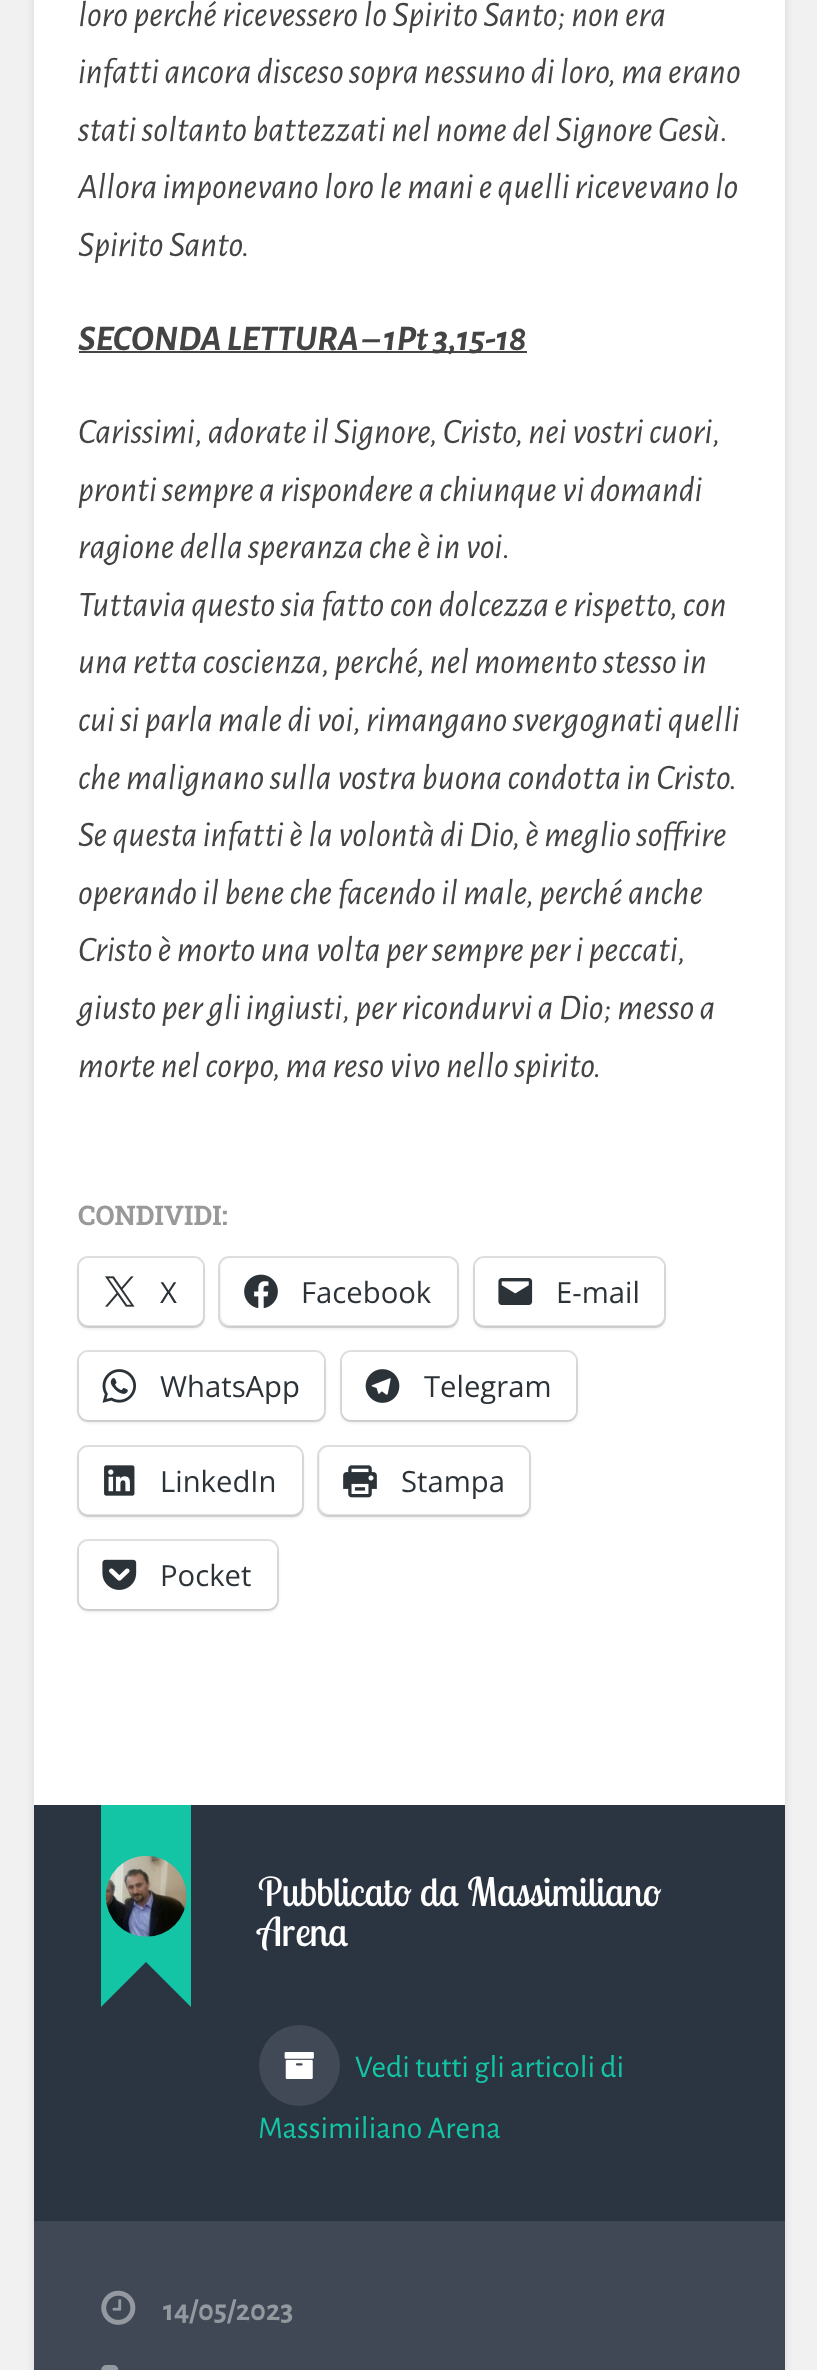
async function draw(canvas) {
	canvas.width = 817;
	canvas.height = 2370;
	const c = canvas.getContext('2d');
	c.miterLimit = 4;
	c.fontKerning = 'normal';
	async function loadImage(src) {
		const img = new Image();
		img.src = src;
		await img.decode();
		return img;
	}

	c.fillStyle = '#f1f1f1';
	c.fillRect(0, 0, 817, 2370);
	c.fillStyle = '#0000001a';
	c.filter = 'blur(4.5px)';
	c.beginPath();
	c.roundRect(34, -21, 751, 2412, 7);
	c.fill();
	c.filter = 'none';
	c.fillStyle = '#fff';
	c.fillRect(34, 0, 751, 1805);
	c.font = 'italic 36px Alegreya Sans';
	c.fillStyle = '#444';
	for (const [text, x, y] of [
		['loro perché ricevessero lo Spirito Santo; non era', 78, 26],
		['infatti ancora disceso sopra nessuno di loro, ma erano', 78, 83],
		['stati soltanto battezzati nel nome del Signore Gesù.', 78, 141],
		['Allora imponevano loro le mani e quelli ricevevano lo', 78, 198],
		['Spirito Santo.', 78, 256],
	]) {
		c.fillText(text, x, y);
	}
	c.fillRect(79, 351, 448, 2);
	c.font = 'italic bold 36px Alegreya Sans';
	c.fillText('SECONDA LETTURA – 1Pt 3,15-18', 78, 350);
	c.font = 'italic 36px Alegreya Sans';
	for (const [text, x, y] of [
		['Carissimi, adorate il Signore, Cristo, nei vostri cuori,', 78, 443],
		['pronti sempre a rispondere a chiunque vi domandi', 78, 501],
		['ragione della speranza che è in voi.', 78, 558],
		['Tuttavia questo sia fatto con dolcezza e rispetto, con', 78, 616],
		['una retta coscienza, perché, nel momento stesso in', 78, 673],
		['cui si parla male di voi, rimangano svergognati quelli', 78, 731],
		['che malignano sulla vostra buona condotta in Cristo.', 78, 789],
		['Se questa infatti è la volontà di Dio, è meglio soffrire', 78, 846],
		['operando il bene che facendo il male, perché anche', 78, 904],
		['Cristo è morto una volta per sempre per i peccati,', 78, 961],
		['giusto per gli ingiusti, per ricondurvi a Dio; messo a', 78, 1019],
		['morte nel corpo, ma reso vivo nello spirito.', 78, 1077],
	]) {
		c.fillText(text, x, y);
	}
	c.font = 'bold 27px Roboto Slab';
	c.fillStyle = '#999';
	c.fillText('CONDIVIDI:', 78, 1225);
	c.beginPath();
	c.roundRect(78, 1257, 126, 70, 10);
	c.strokeStyle = '#e0e0e0';
	c.lineWidth = 2;
	c.stroke();
	c.fillStyle = '#0000001f';
	c.filter = 'blur(2px)';
	c.beginPath();
	c.roundRect(79, 1260, 124, 68, 9);
	c.fill();
	c.filter = 'none';
	c.fillStyle = '#fff';
	c.beginPath();
	c.roundRect(79, 1258, 124, 67, 9);
	c.fill();
	c.drawImage(await loadImage('img1.png'), 105, 1276, 30, 31);
	c.font = '29.25px Open Sans';
	c.fillStyle = '#2c3338';
	c.fillText('X', 160, 1303);
	c.beginPath();
	c.roundRect(219, 1257, 239, 70, 10);
	c.stroke();
	c.fillStyle = '#0000001f';
	c.filter = 'blur(2px)';
	c.beginPath();
	c.roundRect(221, 1260, 236, 68, 9);
	c.fill();
	c.filter = 'none';
	c.fillStyle = '#fff';
	c.beginPath();
	c.roundRect(221, 1258, 236, 67, 9);
	c.fill();
	c.drawImage(await loadImage('img2.png'), 244, 1274, 34, 35);
	c.fillStyle = '#2c3338';
	c.fillText('Facebook', 301, 1303);
	c.beginPath();
	c.roundRect(474, 1257, 191, 70, 10);
	c.stroke();
	c.fillStyle = '#0000001f';
	c.filter = 'blur(2px)';
	c.beginPath();
	c.roundRect(475, 1260, 189, 68, 9);
	c.fill();
	c.filter = 'none';
	c.fillStyle = '#fff';
	c.beginPath();
	c.roundRect(475, 1258, 189, 67, 9);
	c.fill();
	c.drawImage(await loadImage('img3.png'), 498, 1278, 35, 27);
	c.fillStyle = '#2c3338';
	c.fillText('E-mail', 556, 1303);
	c.beginPath();
	c.roundRect(78, 1351, 247, 70, 10);
	c.stroke();
	c.fillStyle = '#0000001f';
	c.filter = 'blur(2px)';
	c.beginPath();
	c.roundRect(79, 1355, 245, 67, 9);
	c.fill();
	c.filter = 'none';
	c.fillStyle = '#fff';
	c.beginPath();
	c.roundRect(79, 1352, 245, 68, 9);
	c.fill();
	c.drawImage(await loadImage('img4.png'), 102, 1369, 34, 34);
	c.fillStyle = '#2c3338';
	c.fillText('WhatsApp', 160, 1397);
	c.beginPath();
	c.roundRect(341, 1351, 236, 70, 10);
	c.stroke();
	c.fillStyle = '#0000001f';
	c.filter = 'blur(2px)';
	c.beginPath();
	c.roundRect(342, 1355, 234, 67, 9);
	c.fill();
	c.filter = 'none';
	c.fillStyle = '#fff';
	c.beginPath();
	c.roundRect(342, 1352, 234, 68, 9);
	c.fill();
	c.drawImage(await loadImage('img5.png'), 365, 1369, 35, 34);
	c.fillStyle = '#2c3338';
	c.fillText('Telegram', 424, 1397);
	c.beginPath();
	c.roundRect(78, 1446, 225, 70, 10);
	c.stroke();
	c.fillStyle = '#0000001f';
	c.filter = 'blur(2px)';
	c.beginPath();
	c.roundRect(79, 1449, 223, 68, 9);
	c.fill();
	c.filter = 'none';
	c.fillStyle = '#fff';
	c.beginPath();
	c.roundRect(79, 1447, 223, 67, 9);
	c.fill();
	c.drawImage(await loadImage('img6.png'), 104, 1465, 31, 31);
	c.fillStyle = '#2c3338';
	c.fillText('LinkedIn', 160, 1492);
	c.beginPath();
	c.roundRect(318, 1446, 212, 70, 10);
	c.stroke();
	c.fillStyle = '#0000001f';
	c.filter = 'blur(2px)';
	c.beginPath();
	c.roundRect(320, 1449, 209, 68, 9);
	c.fill();
	c.filter = 'none';
	c.fillStyle = '#fff';
	c.beginPath();
	c.roundRect(320, 1447, 209, 67, 9);
	c.fill();
	c.drawImage(await loadImage('img7.png'), 343, 1465, 34, 33);
	c.fillStyle = '#2c3338';
	c.fillText('Stampa', 401, 1492);
	c.beginPath();
	c.roundRect(78, 1540, 200, 70, 10);
	c.stroke();
	c.fillStyle = '#0000001f';
	c.filter = 'blur(2px)';
	c.beginPath();
	c.roundRect(79, 1544, 198, 67, 9);
	c.fill();
	c.filter = 'none';
	c.fillStyle = '#fff';
	c.beginPath();
	c.roundRect(79, 1541, 198, 68, 9);
	c.fill();
	c.drawImage(await loadImage('img8.png'), 102, 1559, 35, 31);
	c.fillStyle = '#2c3338';
	c.fillText('Pocket', 160, 1586);
	c.fillStyle = '#2b3542';
	c.fillRect(34, 1805, 751, 416);
	c.fillStyle = '#13c4a5';
	c.beginPath();
	c.moveTo(191, 1917);
	c.lineTo(191, 2007);
	c.lineTo(146, 1962);
	c.closePath();
	c.fill();
	c.beginPath();
	c.moveTo(101, 2007);
	c.lineTo(101, 1917);
	c.lineTo(146, 1962);
	c.closePath();
	c.fill();
	c.fillRect(101, 1805, 90, 157);
	c.drawImage(await loadImage('img9.png'), 105, 1855, 82, 82);
	c.font = '39.6px Lobster Two';
	c.fillStyle = '#fff';
	c.fillText('Pubblicato da Massimiliano', 258, 1906);
	c.fillText('Arena', 258, 1946);
	c.fillStyle = '#404955';
	c.beginPath();
	c.arc(299.5, 2065.5, 40.5, 0, 2 * Math.PI);
	c.fill();
	c.drawImage(await loadImage('img10.png'), 284, 2052, 30, 27);
	c.font = '31.5px Alegreya Sans';
	c.fillStyle = '#13c4a5';
	c.fillText('Vedi tutti gli articoli di', 355, 2077);
	c.fillText('Massimiliano Arena', 258, 2138);
	c.fillStyle = '#3f4854';
	c.fillRect(34, 2221, 751, 149);
	c.drawImage(await loadImage('img11.png'), 101, 2290, 35, 35);
	c.font = 'bold 30.5px Alegreya Sans';
	c.fillStyle = '#9499a0';
	c.fillText('14/05/2023', 163, 2320);
	c.drawImage(await loadImage('img12.png'), 101, 2365, 18, 5);
}

draw(document.querySelector('canvas'));
